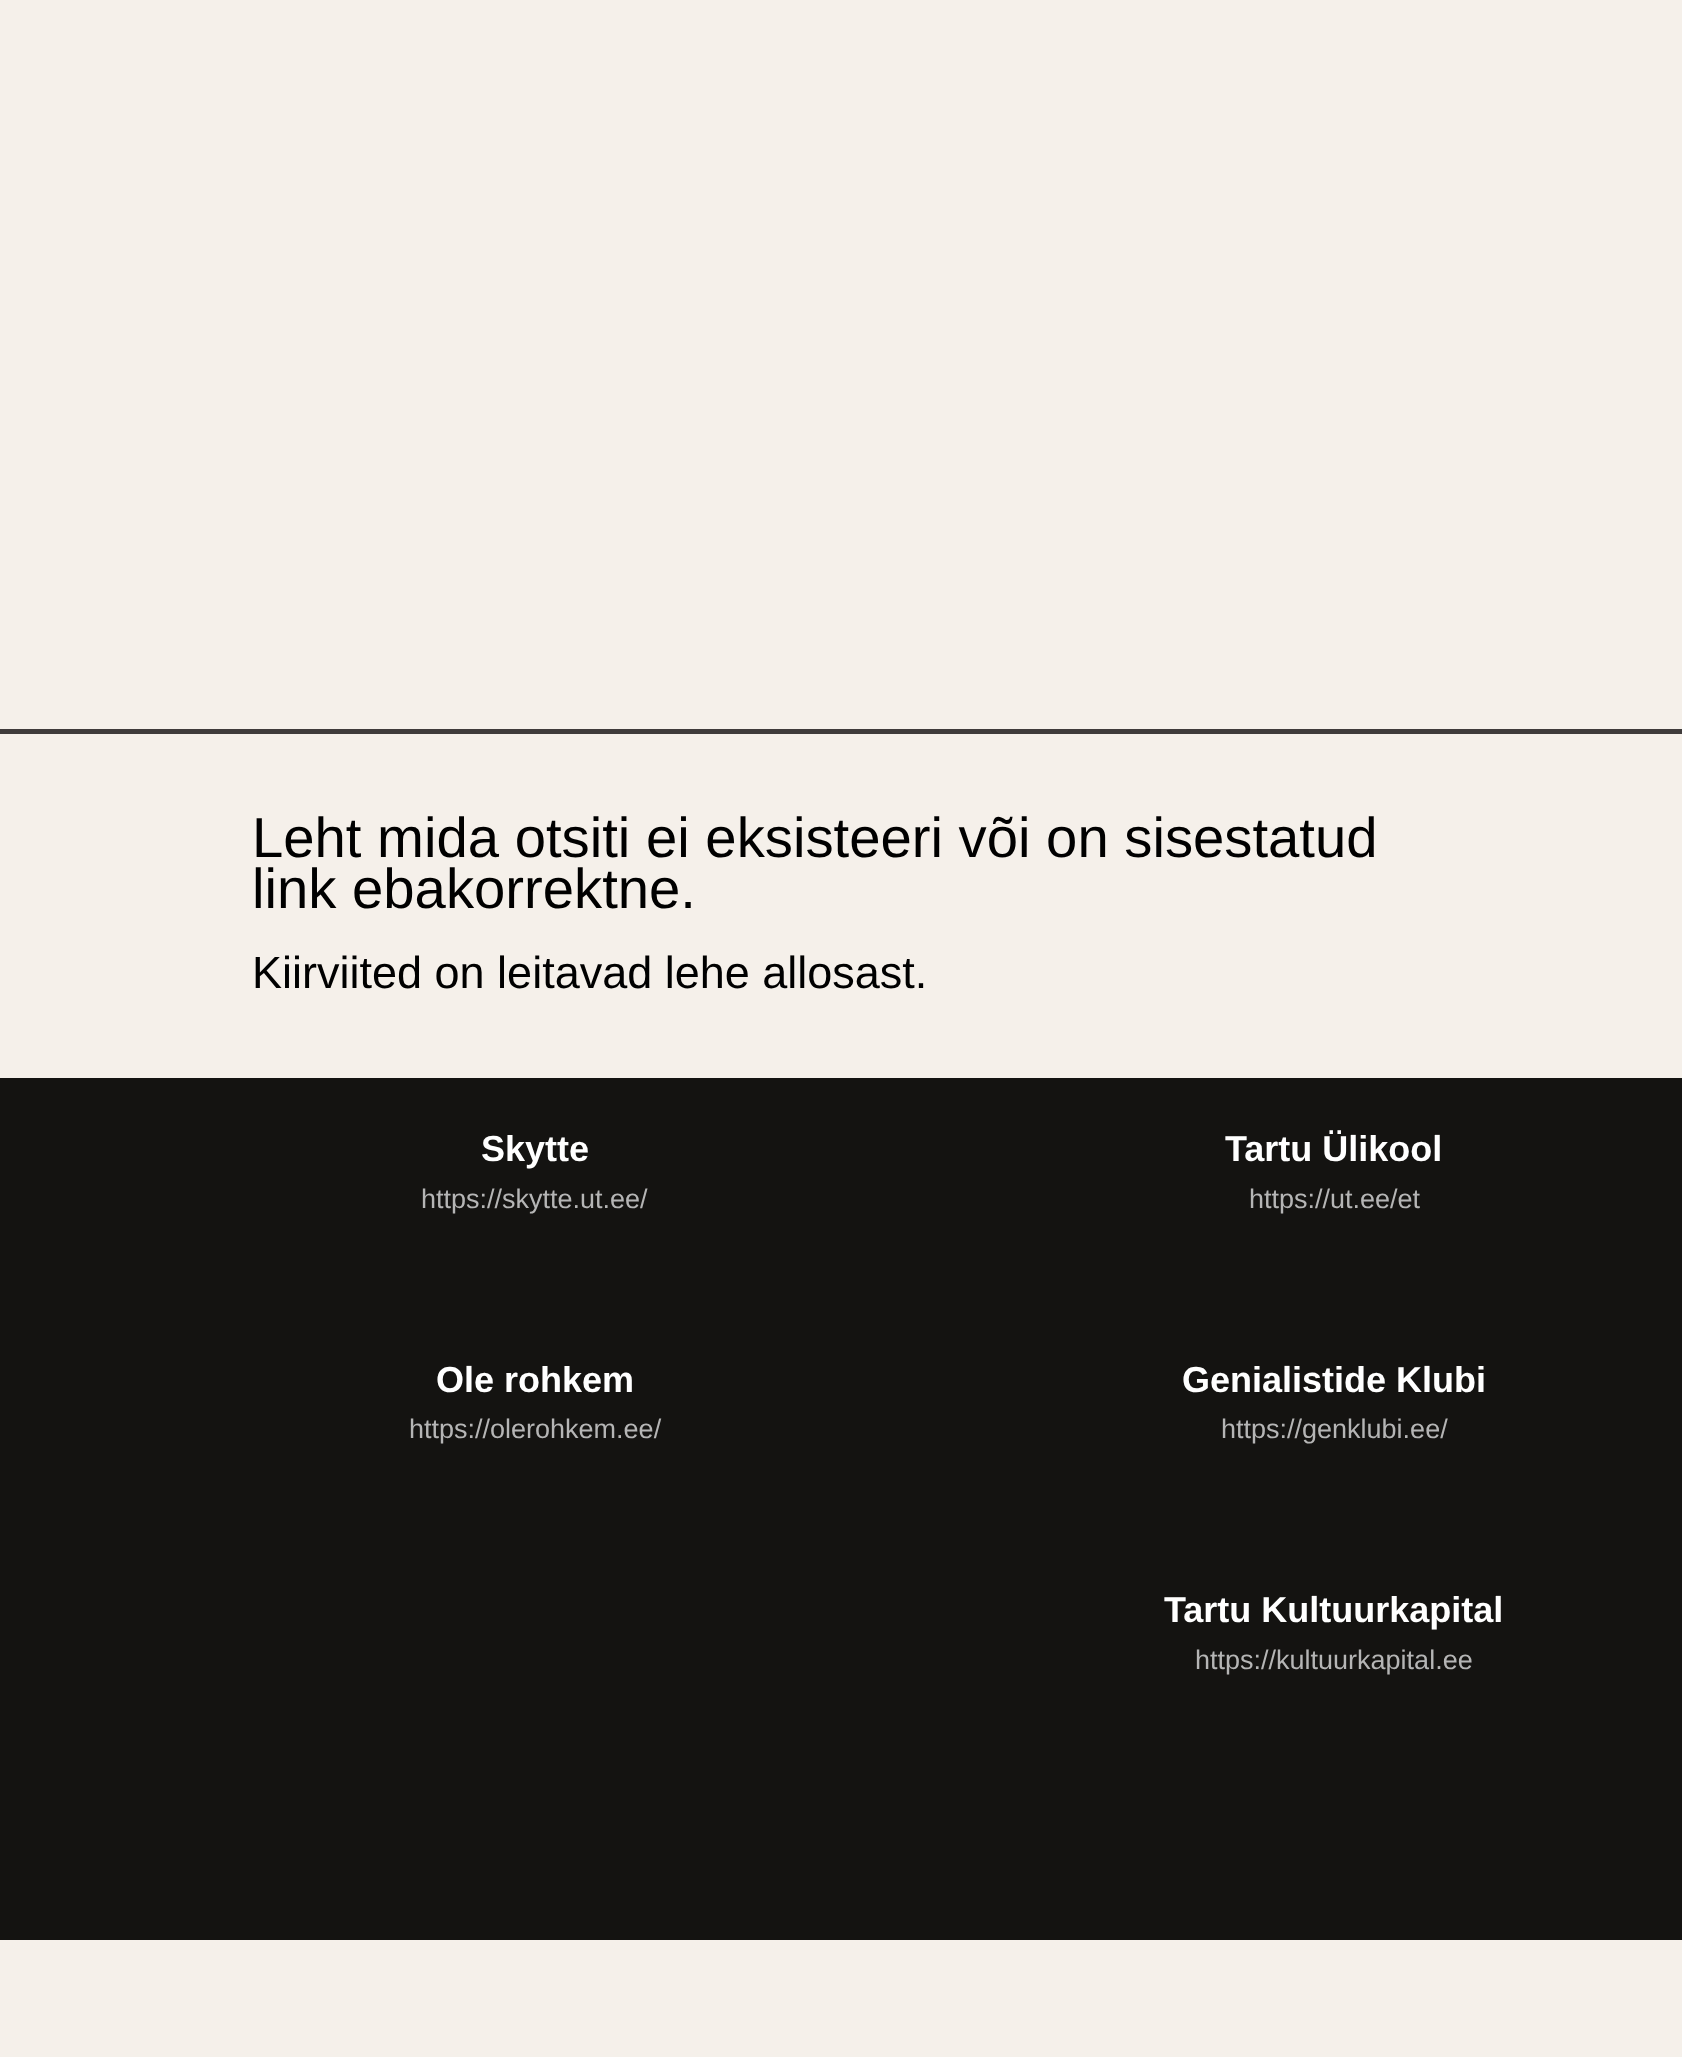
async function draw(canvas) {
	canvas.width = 1682;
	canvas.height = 2057;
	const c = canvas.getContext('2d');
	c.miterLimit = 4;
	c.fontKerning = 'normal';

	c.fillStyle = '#f5f0ea';
	c.fillRect(0, 0, 1682, 2057);
	c.fillStyle = '#3f3b3b';
	c.fillRect(0, 729, 1682, 5);
	c.font = '56.25px Liberation Sans';
	c.fillStyle = '#000';
	c.fillText('Leht mida otsiti ei eksisteeri või on sisestatud', 252, 857);
	c.fillText('link ebakorrektne.', 252, 908);
	c.font = '45px Liberation Sans';
	c.fillText('Kiirviited on leitavad lehe allosast.', 252, 988);
	c.fillStyle = '#141311';
	c.fillRect(0, 1078, 1682, 862);
	c.font = 'bold 36px Liberation Sans';
	c.fillStyle = '#fff';
	c.fillText('Skytte', 481, 1161);
	c.font = '27px Liberation Sans';
	c.fillStyle = '#b5b5b5';
	c.fillText('https://skytte.ut.ee/', 421, 1208);
	c.font = 'bold 36px Liberation Sans';
	c.fillStyle = '#fff';
	c.fillText('Ole rohkem', 436, 1392);
	c.font = '27px Liberation Sans';
	c.fillStyle = '#b5b5b5';
	c.fillText('https://olerohkem.ee/', 409, 1438);
	c.font = 'bold 36px Liberation Sans';
	c.fillStyle = '#fff';
	c.fillText('Tartu Ülikool', 1225, 1161);
	c.font = '27px Liberation Sans';
	c.fillStyle = '#b5b5b5';
	c.fillText('https://ut.ee/et', 1249, 1208);
	c.font = 'bold 36px Liberation Sans';
	c.fillStyle = '#fff';
	c.fillText('Genialistide Klubi', 1182, 1392);
	c.font = '27px Liberation Sans';
	c.fillStyle = '#b5b5b5';
	c.fillText('https://genklubi.ee/', 1221, 1438);
	c.font = 'bold 36px Liberation Sans';
	c.fillStyle = '#fff';
	c.fillText('Tartu Kultuurkapital', 1164, 1622);
	c.font = '27px Liberation Sans';
	c.fillStyle = '#b5b5b5';
	c.fillText('https://kultuurkapital.ee', 1195, 1669);
}

draw(document.querySelector('canvas'));
